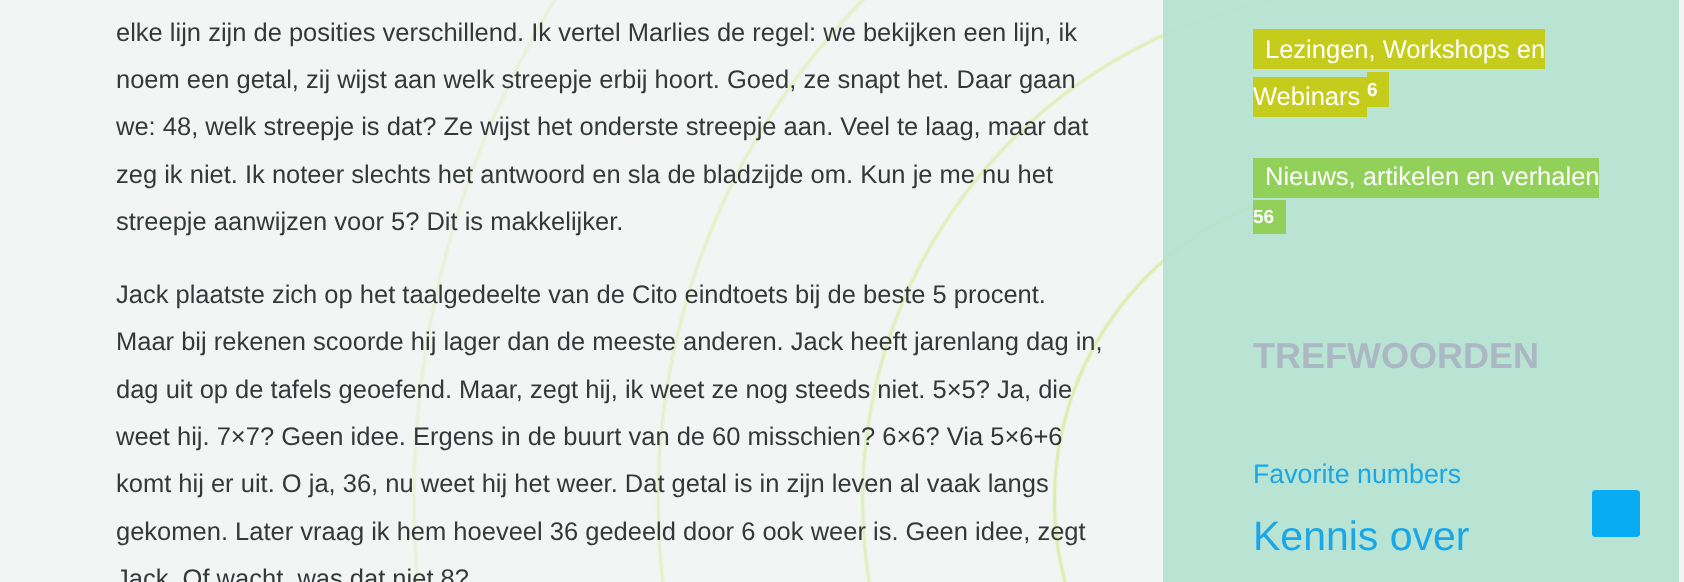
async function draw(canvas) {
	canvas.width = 1684;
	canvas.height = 582;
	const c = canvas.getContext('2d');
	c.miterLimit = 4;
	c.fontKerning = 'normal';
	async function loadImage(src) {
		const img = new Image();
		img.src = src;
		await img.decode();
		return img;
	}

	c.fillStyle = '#f2f5f4';
	c.fillRect(0, 0, 1684, 582);
	c.drawImage(await loadImage('img1.png'), 412, 0, 874, 582);
	c.font = '25.5px Liberation Sans';
	c.fillStyle = '#333838';
	for (const [text, x, y] of [
		['elke lijn zijn de posities verschillend. Ik vertel Marlies de regel: we bekijken een lijn, ik', 116, 41],
		['noem een getal, zij wijst aan welk streepje erbij hoort. Goed, ze snapt het. Daar gaan', 116, 88],
		['we: 48, welk streepje is dat? Ze wijst het onderste streepje aan. Veel te laag, maar dat', 116, 135],
		['zeg ik niet. Ik noteer slechts het antwoord en sla de bladzijde om. Kun je me nu het', 116, 183],
		['streepje aanwijzen voor 5? Dit is makkelijker.', 116, 230],
		['Jack plaatste zich op het taalgedeelte van de Cito eindtoets bij de beste 5 procent.', 116, 303],
		['Maar bij rekenen scoorde hij lager dan de meeste anderen. Jack heeft jarenlang dag in,', 116, 350],
		['dag uit op de tafels geoefend. Maar, zegt hij, ik weet ze nog steeds niet. 5×5? Ja, die', 116, 398],
		['weet hij. 7×7? Geen idee. Ergens in de buurt van de 60 misschien? 6×6? Via 5×6+6', 116, 445],
		['komt hij er uit. O ja, 36, nu weet hij het weer. Dat getal is in zijn leven al vaak langs', 116, 492],
		['gekomen. Later vraag ik hem hoeveel 36 gedeeld door 6 ook weer is. Geen idee, zegt', 116, 540],
		['Jack. Of wacht, was dat niet 8?', 116, 587],
	]) {
		c.fillText(text, x, y);
	}
	c.fillStyle = '#b3e1d0e8';
	c.fillRect(1163, 0, 516, 582);
	c.fillStyle = '#c6cc1c';
	c.fillRect(1253, 29, 292, 40);
	c.fillStyle = '#fff';
	c.fillText('Lezingen, Workshops en', 1265, 58);
	c.fillStyle = '#c6cc1c';
	c.fillRect(1253, 77, 114, 40);
	c.fillStyle = '#fff';
	c.fillText('Webinars', 1253, 105);
	c.fillStyle = '#c6cc1c';
	c.fillRect(1367, 72, 22, 35);
	c.font = 'bold 19px Liberation Sans';
	c.fillStyle = '#fff';
	c.fillText('6', 1367, 96);
	c.fillStyle = '#92d159';
	c.fillRect(1253, 158, 346, 40);
	c.font = '25.5px Liberation Sans';
	c.fillStyle = '#fff';
	c.fillText('Nieuws, artikelen en verhalen', 1265, 185);
	c.fillStyle = '#92d159';
	c.fillRect(1253, 200, 33, 34);
	c.font = 'bold 19px Liberation Sans';
	c.fillStyle = '#fff';
	c.fillText('56', 1253, 223);
	c.font = 'bold 36px Liberation Sans';
	c.fillStyle = '#abb8c3';
	c.fillText('TREFWOORDEN', 1253, 368);
	c.font = '26.75px Liberation Sans';
	c.fillStyle = '#1aa7e9';
	c.fillText('Favorite numbers', 1253, 483);
	c.font = '41px Liberation Sans';
	c.fillText('Kennis over', 1253, 550);
	c.fillStyle = '#08acf2';
	c.beginPath();
	c.moveTo(1636, 537);
	c.lineTo(1595, 537);
	c.bezierCurveTo(1594, 537, 1592, 536, 1592, 534);
	c.lineTo(1592, 493);
	c.bezierCurveTo(1592, 491, 1594, 490, 1595, 490);
	c.lineTo(1636, 490);
	c.bezierCurveTo(1638, 490, 1640, 491, 1640, 493);
	c.lineTo(1640, 534);
	c.bezierCurveTo(1640, 536, 1638, 537, 1636, 537);
	c.closePath();
	c.fill();
}

draw(document.querySelector('canvas'));
